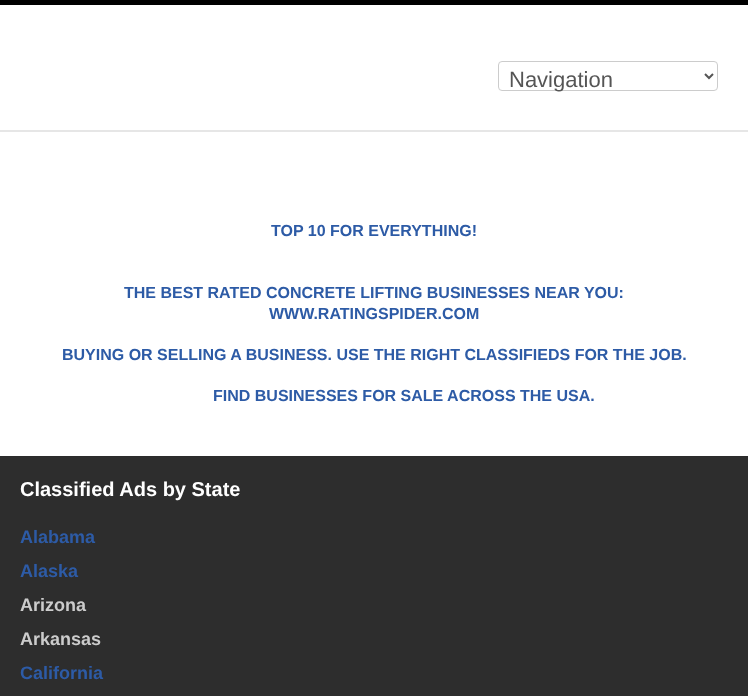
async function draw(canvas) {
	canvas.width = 748;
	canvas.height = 696;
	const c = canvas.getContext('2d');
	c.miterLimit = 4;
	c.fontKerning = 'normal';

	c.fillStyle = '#fff';
	c.fillRect(0, 0, 748, 696);
	c.fillStyle = '#000';
	c.fillRect(0, 0, 748, 5);
	c.beginPath();
	c.roundRect(498.5, 61.5, 219, 29, 3.5);
	c.strokeStyle = '#ccc';
	c.stroke();
	c.beginPath();
	c.moveTo(705, 74);
	c.lineTo(709, 78);
	c.lineTo(713, 74);
	c.strokeStyle = '#555';
	c.lineWidth = 2;
	c.stroke();
	c.font = '22px Liberation Sans';
	c.fillStyle = '#555';
	c.fillText('Navigation', 509, 87);
	c.fillStyle = '#e6e6e6';
	c.fillRect(0, 130, 748, 2);
	c.font = 'bold 16px Liberation Sans';
	c.fillStyle = '#2d5ba6';
	for (const [text, x, y] of [
		['TOP 10 FOR EVERYTHING!', 271, 236],
		['THE BEST RATED CONCRETE LIFTING BUSINESSES NEAR YOU:', 124, 298],
		['WWW.RATINGSPIDER.COM', 269, 319],
		['BUYING OR SELLING A BUSINESS. USE THE RIGHT CLASSIFIEDS FOR THE JOB.', 62, 360],
		['FIND BUSINESSES FOR SALE ACROSS THE USA.', 213, 401],
	]) {
		c.fillText(text, x, y);
	}
	c.fillStyle = '#2d2d2d';
	c.fillRect(0, 457, 748, 239);
	c.fillStyle = '#2b2b2b';
	c.fillRect(0, 456, 748, 1);
	c.font = 'bold 20px Liberation Sans';
	c.fillStyle = '#fff';
	c.fillText('Classified Ads by State', 20, 496);
	c.font = 'bold 18px Liberation Sans';
	c.fillStyle = '#2d5ba6';
	c.fillText('Alabama', 20, 543);
	c.fillText('Alaska', 20, 577);
	c.fillStyle = '#ccc';
	c.fillText('Arizona', 20, 611);
	c.fillText('Arkansas', 20, 645);
	c.fillStyle = '#2d5ba6';
	c.fillText('California', 20, 679);
}

draw(document.querySelector('canvas'));
